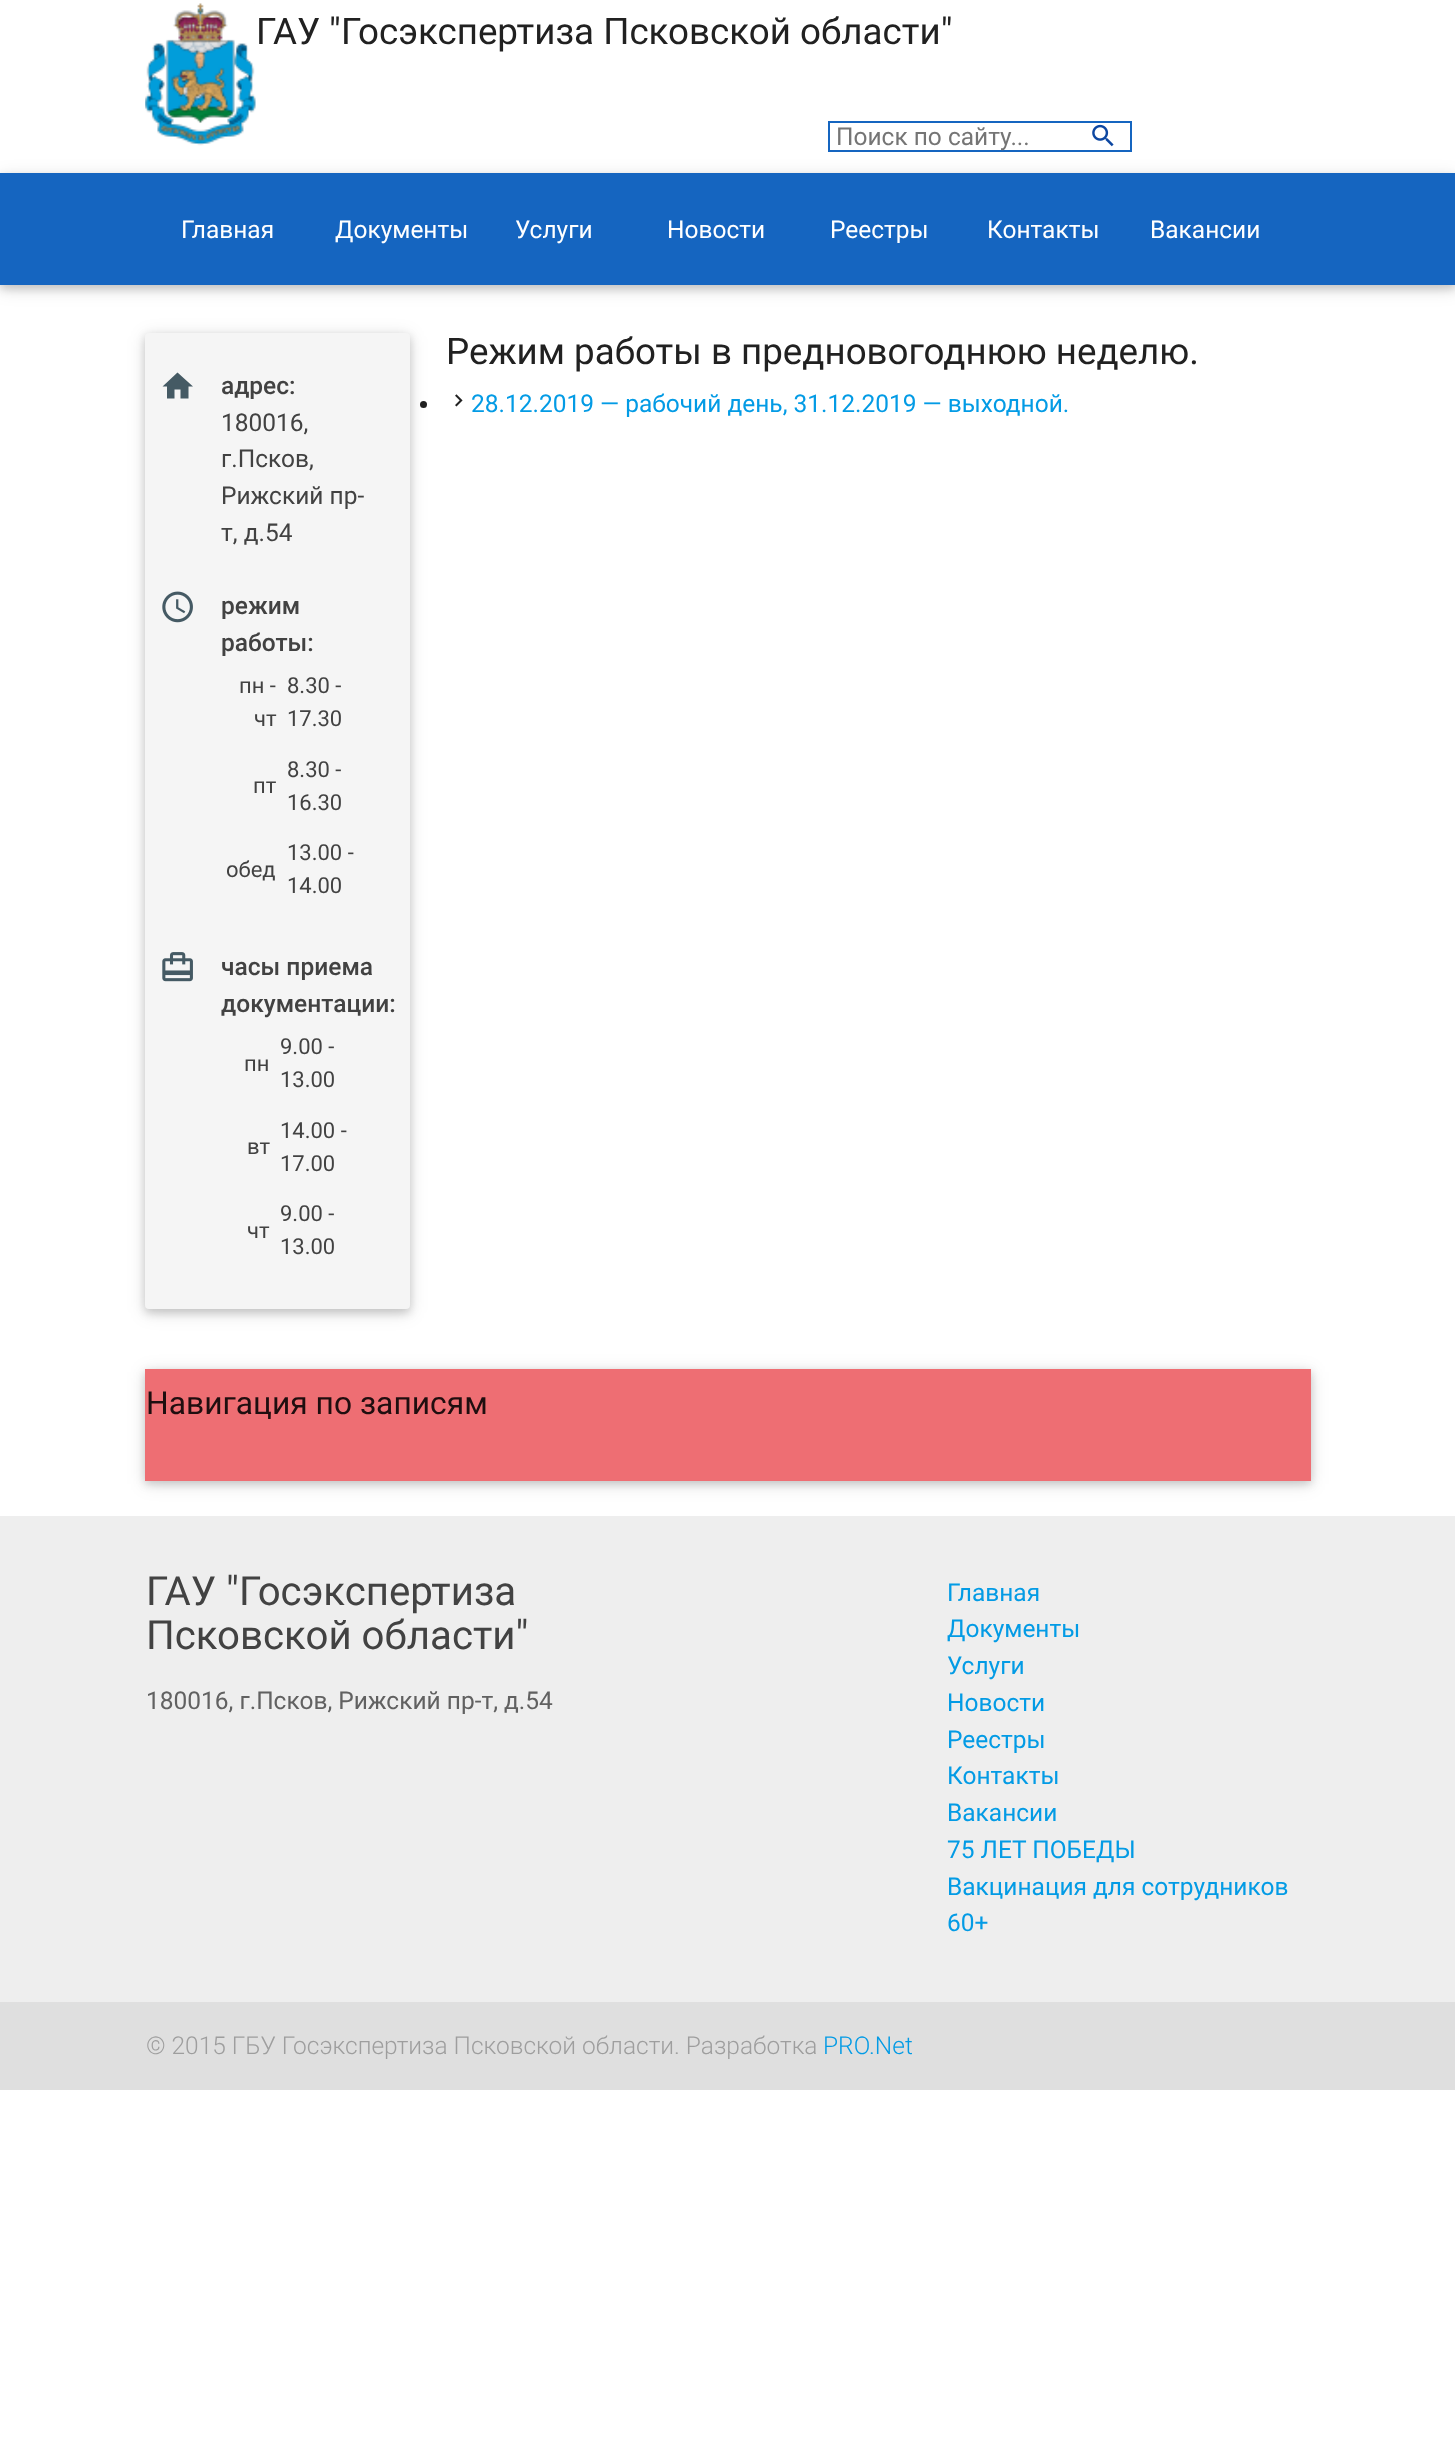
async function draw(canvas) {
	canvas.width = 1455;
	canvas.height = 2454;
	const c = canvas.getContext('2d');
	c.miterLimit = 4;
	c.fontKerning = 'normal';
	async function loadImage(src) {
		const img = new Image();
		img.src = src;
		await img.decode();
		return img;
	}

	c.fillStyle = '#fff';
	c.fillRect(0, 0, 1455, 2454);
	c.drawImage(await loadImage('img1.png'), 145, 3, 111, 143);
	c.font = '36.75px Roboto';
	c.fillStyle = '#212121';
	c.fillText('ГАУ "Госэкспертиза Псковской области"', 256, 44);
	c.fillStyle = '#0000001f';
	c.filter = 'blur(9px)';
	c.beginPath();
	c.rect(0, 177, 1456, 112);
	c.fill();
	c.filter = 'none';
	c.strokeStyle = '#1565c0';
	c.lineWidth = 2;
	c.strokeRect(829, 122, 302, 29);
	c.font = '24.5px Roboto';
	c.fillStyle = '#757575';
	c.fillText('Поиск по сайту...', 836, 145);
	c.drawImage(await loadImage('img2.png'), 1092, 124, 22, 23);
	c.fillStyle = '#00000029';
	c.filter = 'blur(4.5px)';
	c.beginPath();
	c.rect(0, 177, 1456, 112);
	c.fill();
	c.filter = 'none';
	c.fillStyle = '#1565c0';
	c.fillRect(0, 173, 1455, 112);
	c.fillStyle = '#fff';
	for (const [text, x, y] of [
		['Главная', 181, 238],
		['Документы', 335, 238],
		['Услуги', 515, 238],
		['Новости', 667, 238],
		['Реестры', 830, 238],
		['Контакты', 987, 238],
		['Вакансии', 1150, 238],
	]) {
		c.fillText(text, x, y);
	}
	c.fillStyle = '#212121';
	c.beginPath();
	c.arc(423.5, 404.5, 3.5, 0, 2 * Math.PI);
	c.fill();
	c.fillStyle = '#0000001f';
	c.filter = 'blur(9px)';
	c.beginPath();
	c.roundRect(145, 336, 265, 977, 4);
	c.fill();
	c.filter = 'none';
	c.fillStyle = '#00000029';
	c.filter = 'blur(4.5px)';
	c.beginPath();
	c.roundRect(145, 336, 265, 977, 4);
	c.fill();
	c.filter = 'none';
	c.fillStyle = '#f5f5f5';
	c.beginPath();
	c.roundRect(145, 333, 265, 976, 4);
	c.fill();
	c.fillStyle = '#455a64';
	c.beginPath();
	c.moveTo(174.5, 398.5);
	c.lineTo(174.5, 389.5);
	c.lineTo(180.5, 389.5);
	c.lineTo(180.5, 398.5);
	c.lineTo(188.5, 398.5);
	c.lineTo(188.5, 386.5);
	c.lineTo(193, 386.5);
	c.lineTo(177.5, 372.5);
	c.lineTo(162.5, 386.5);
	c.lineTo(167, 386.5);
	c.lineTo(167, 398.5);
	c.closePath();
	c.fill();
	c.font = '500 24.5px Roboto';
	c.fillStyle = '#424242';
	c.fillText('адрес:', 221, 394);
	c.font = '24.5px Roboto';
	for (const [text, x, y] of [
		['180016,', 221, 431],
		['г.Псков,', 221, 467],
		['Рижский пр-', 221, 504],
		['т, д.54', 221, 541],
	]) {
		c.fillText(text, x, y);
	}
	c.drawImage(await loadImage('img3.png'), 162, 591, 31, 32);
	c.font = '500 24.5px Roboto';
	c.fillText('режим', 221, 614);
	c.fillText('работы:', 221, 651);
	c.font = '22px Roboto';
	for (const [text, x, y] of [
		['пн -', 239, 693],
		['чт', 254, 726],
		['8.30 -', 287, 693],
		['17.30', 287, 726],
		['пт', 253, 793],
		['8.30 -', 287, 777],
		['16.30', 287, 810],
		['обед', 226, 877],
		['13.00 -', 287, 860],
		['14.00', 287, 893],
	]) {
		c.fillText(text, x, y);
	}
	c.drawImage(await loadImage('img4.png'), 162, 952, 31, 30);
	c.font = '500 24.5px Roboto';
	c.fillText('часы приема', 221, 975);
	c.fillText('документации:', 221, 1012);
	c.font = '22px Roboto';
	for (const [text, x, y] of [
		['пн', 244, 1071],
		['9.00 -', 280, 1054],
		['13.00', 280, 1087],
		['вт', 247, 1154],
		['14.00 -', 280, 1138],
		['17.00', 280, 1171],
		['чт', 247, 1238],
		['9.00 -', 280, 1221],
		['13.00', 280, 1254],
	]) {
		c.fillText(text, x, y);
	}
	c.font = '36.75px Roboto';
	c.fillStyle = '#212121';
	c.fillText('Режим работы в предновогоднюю неделю.', 446, 364);
	c.drawImage(await loadImage('img5.png'), 455, 394, 8, 13);
	c.font = '24.5px Roboto';
	c.fillStyle = '#039be5';
	c.fillText('28.12.2019 — рабочий день, 31.12.2019 — выходной.', 471, 412);
	c.fillStyle = '#0000001f';
	c.filter = 'blur(9px)';
	c.beginPath();
	c.rect(145, 1372, 1166, 112);
	c.fill();
	c.filter = 'none';
	c.fillStyle = '#00000029';
	c.filter = 'blur(4.5px)';
	c.beginPath();
	c.rect(145, 1372, 1166, 112);
	c.fill();
	c.filter = 'none';
	c.fillStyle = '#ee6e73';
	c.fillRect(145, 1369, 1166, 112);
	c.font = '31.8px Roboto';
	c.fillStyle = '#1f0e0f';
	c.fillText('Навигация по записям', 146, 1414);
	c.fillStyle = '#eee';
	c.fillRect(0, 1516, 1455, 486);
	c.font = '40.25px Roboto';
	c.fillStyle = '#424242';
	c.fillText('ГАУ "Госэкспертиза', 146, 1605);
	c.fillText('Псковской области"', 146, 1649);
	c.font = '24.5px Roboto';
	c.fillStyle = '#616161';
	c.fillText('180016, г.Псков, Рижский пр-т, д.54', 146, 1709);
	c.fillStyle = '#039be5';
	for (const [text, x, y] of [
		['Главная', 947, 1601],
		['Документы', 947, 1637],
		['Услуги', 947, 1674],
		['Новости', 947, 1711],
		['Реестры', 947, 1748],
		['Контакты', 947, 1784],
		['Вакансии', 947, 1821],
		['75 ЛЕТ ПОБЕДЫ', 947, 1858],
		['Вакцинация для сотрудников', 947, 1895],
		['60+', 947, 1931],
	]) {
		c.fillText(text, x, y);
	}
	c.fillStyle = '#dfdfdf';
	c.fillRect(0, 2002, 1455, 88);
	c.font = '300 24.5px Roboto';
	c.fillStyle = '#9e9e9e';
	c.fillText('© 2015 ГБУ Госэкспертиза Псковской области. Разработка', 146, 2054);
	c.fillStyle = '#039be5';
	c.fillText('PRO.Net', 823, 2054);
}

draw(document.querySelector('canvas'));
